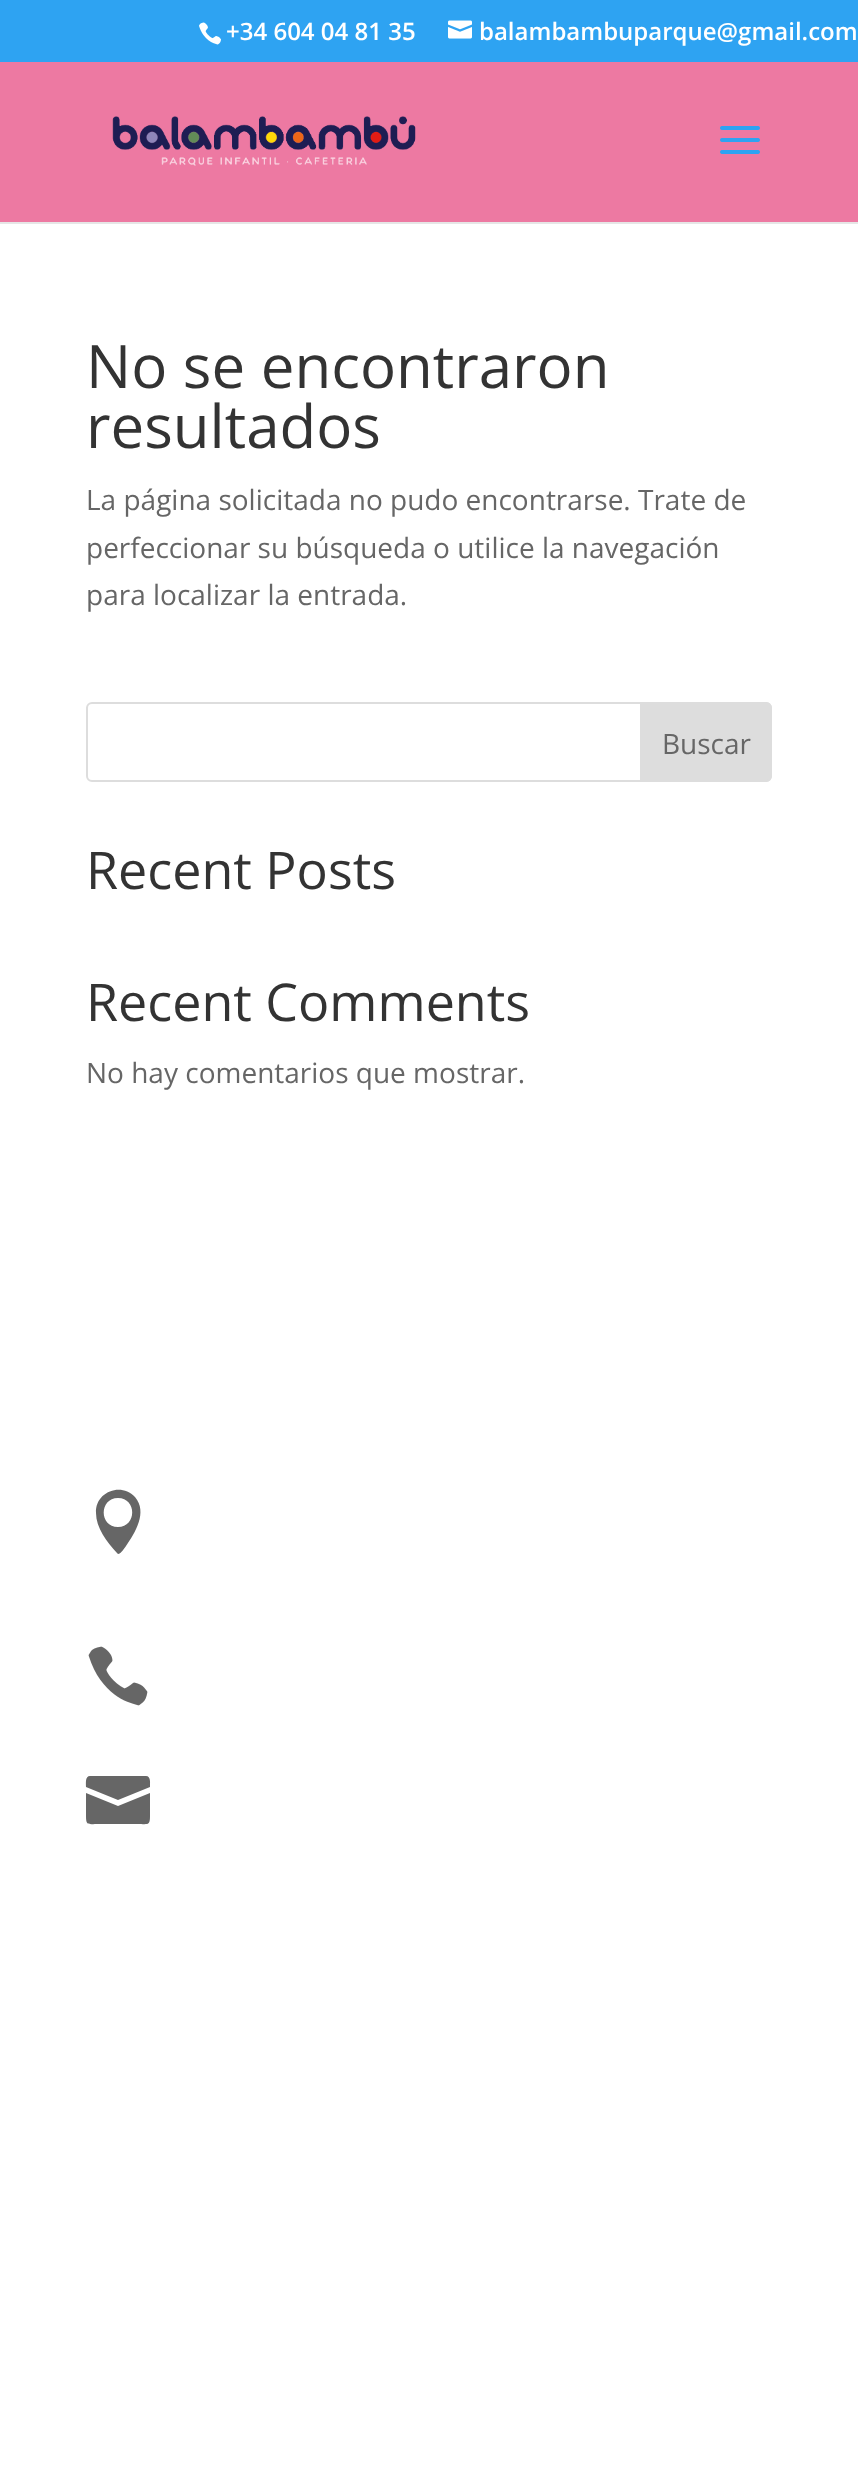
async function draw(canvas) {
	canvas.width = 858;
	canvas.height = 2480;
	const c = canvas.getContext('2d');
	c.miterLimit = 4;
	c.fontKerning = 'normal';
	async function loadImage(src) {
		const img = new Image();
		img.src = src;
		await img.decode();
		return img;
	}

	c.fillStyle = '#fff';
	c.fillRect(0, 0, 858, 2480);
	c.fillStyle = '#2ea3f2';
	c.fillRect(0, 0, 858, 62);
	c.drawImage(await loadImage('img1.png'), 199, 22, 22, 23);
	c.font = '600 24px Open Sans';
	c.fillStyle = '#fff';
	c.fillText('+34 604 04 81 35', 226, 40);
	c.drawImage(await loadImage('img2.png'), 448, 20, 24, 19);
	c.fillText('balambambuparque@gmail.com', 479, 40);
	c.fillStyle = '#e6e6e6';
	c.fillRect(0, 222, 858, 2);
	c.fillStyle = '#ed79a2';
	c.fillRect(0, 62, 858, 160);
	c.drawImage(await loadImage('img3.png'), 112, 116, 304, 50);
	c.drawImage(await loadImage('img4.png'), 720, 126, 40, 28);
	c.font = '60px Open Sans';
	c.fillStyle = '#333';
	c.fillText('No se encontraron', 86, 388);
	c.fillText('resultados', 86, 448);
	c.font = '28px Open Sans';
	c.fillStyle = '#666';
	for (const [text, x, y] of [
		['La página solicitada no pudo encontrarse. Trate de', 86, 510],
		['perfeccionar su búsqueda o utilice la navegación', 86, 558],
		['para localizar la entrada.', 86, 605],
	]) {
		c.fillText(text, x, y);
	}
	c.beginPath();
	c.roundRect(87, 703, 684, 78, 5);
	c.strokeStyle = '#ddd';
	c.lineWidth = 2;
	c.stroke();
	c.fillStyle = '#ddd';
	c.beginPath();
	c.roundRect(641, 703, 130, 78, [0, 5, 5, 0]);
	c.fill();
	c.stroke();
	c.fillStyle = '#666';
	c.fillText('Buscar', 662, 754);
	c.font = '52px Open Sans';
	c.fillStyle = '#333';
	c.fillText('Recent Posts', 86, 889);
	c.fillText('Recent Comments', 86, 1021);
	c.font = '28px Open Sans';
	c.fillStyle = '#666';
	c.fillText('No hay comentarios que mostrar.', 86, 1083);
	c.beginPath();
	c.moveTo(117, 1553);
	c.lineTo(118, 1554);
	c.bezierCurveTo(121, 1554, 125, 1547, 126, 1546);
	c.bezierCurveTo(135, 1533, 148, 1512, 135, 1497);
	c.bezierCurveTo(121, 1482, 95, 1492, 96, 1513);
	c.bezierCurveTo(96, 1528, 107, 1542, 117, 1553);
	c.closePath();
	c.moveTo(118, 1498);
	c.bezierCurveTo(137, 1498, 137, 1527, 118, 1527);
	c.bezierCurveTo(99, 1527, 99, 1498, 118, 1498);
	c.closePath();
	c.fill();
	c.drawImage(await loadImage('img5.png'), 88, 1646, 60, 60);
	c.beginPath();
	c.moveTo(146, 1776);
	c.lineTo(90, 1776);
	c.bezierCurveTo(85, 1776, 86, 1783, 86, 1787);
	c.lineTo(118, 1800);
	c.lineTo(150, 1787);
	c.bezierCurveTo(150, 1783, 151, 1776, 146, 1776);
	c.closePath();
	c.moveTo(86, 1793);
	c.lineTo(86, 1816);
	c.bezierCurveTo(86, 1826, 88, 1824, 99, 1824);
	c.lineTo(137, 1824);
	c.bezierCurveTo(148, 1824, 150, 1826, 150, 1816);
	c.lineTo(150, 1793);
	c.lineTo(118, 1806);
	c.closePath();
	c.fill();
}

draw(document.querySelector('canvas'));
